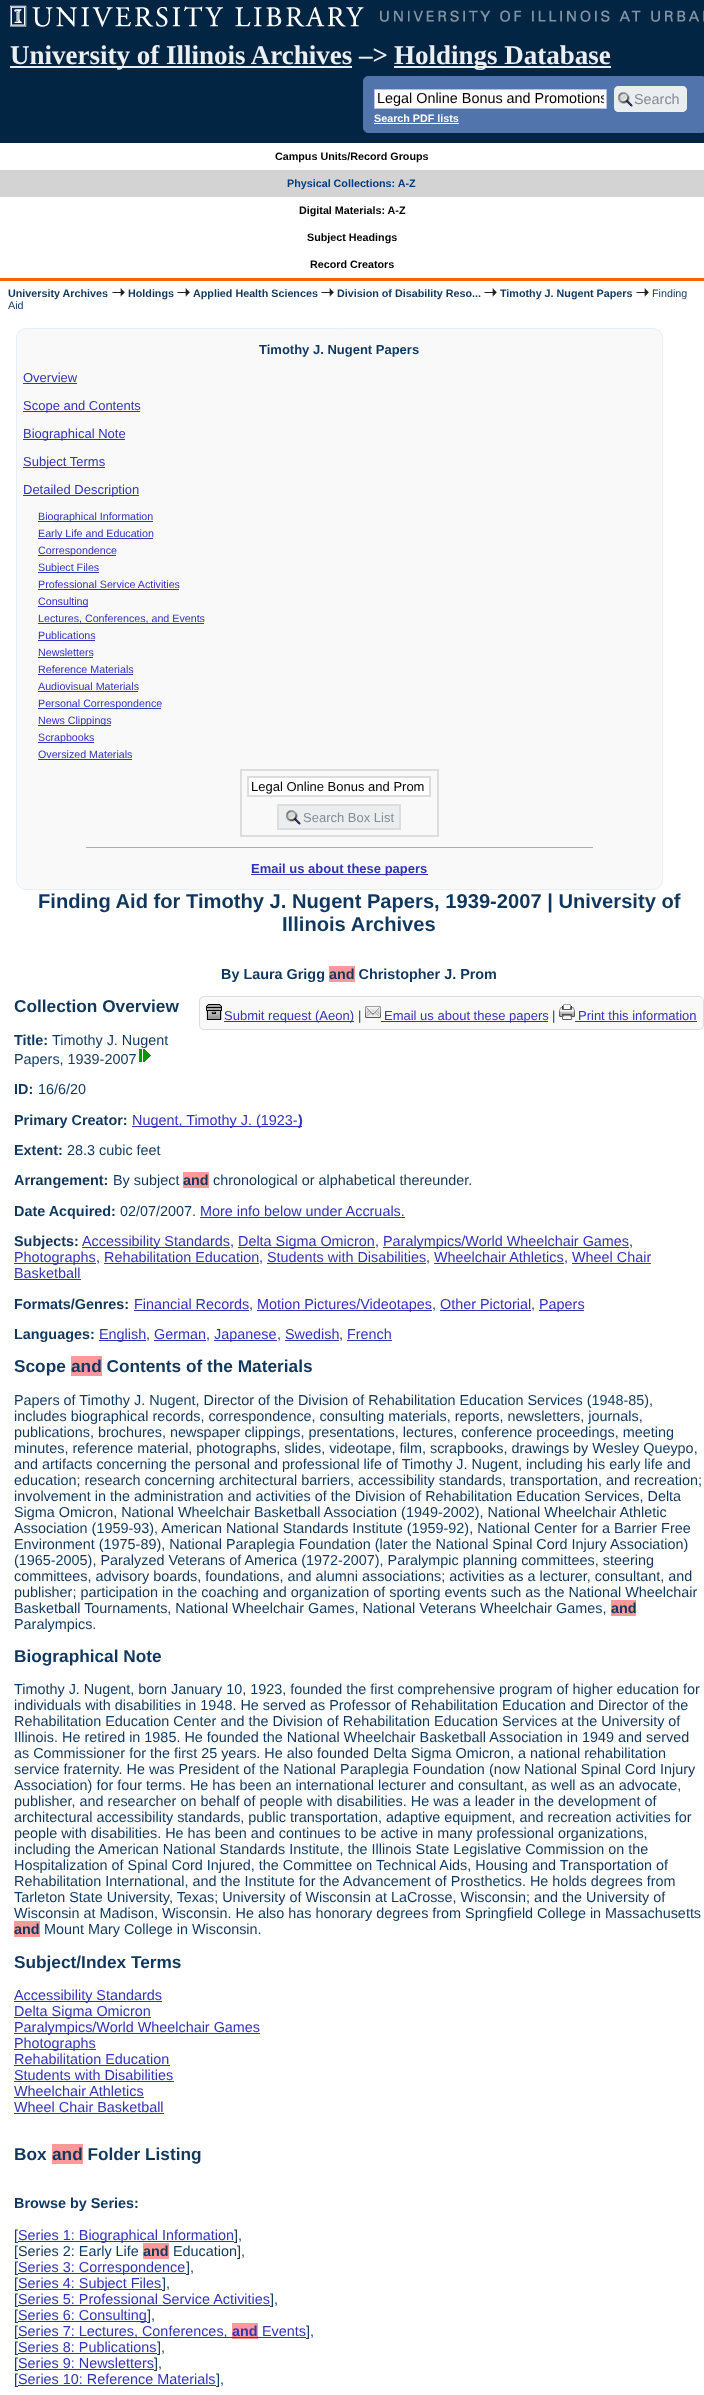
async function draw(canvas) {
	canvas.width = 704;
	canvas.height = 2395;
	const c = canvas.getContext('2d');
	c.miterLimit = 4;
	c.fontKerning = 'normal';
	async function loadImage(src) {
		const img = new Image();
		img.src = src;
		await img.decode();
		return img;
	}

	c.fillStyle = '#fff';
	c.fillRect(0, 0, 704, 2395);
	c.fillStyle = '#022544';
	c.fillRect(0, 0, 704, 143);
	c.drawImage(await loadImage('img1.png'), 10, 5, 694, 22);
	c.fillStyle = '#fa6300';
	c.fillRect(0, 278, 704, 3);
	c.fillStyle = '#eceff1';
	c.fillRect(10, 66, 342, 2);
	c.font = 'bold 27px Liberation Serif';
	c.fillText('University of Illinois Archives –>', 10, 64);
	c.fillRect(394, 66, 217, 2);
	c.fillText('Holdings Database', 394, 64);
	c.fillStyle = '#5274ac';
	c.beginPath();
	c.roundRect(363.5, 76.5, 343, 56, 4.5);
	c.fill();
	c.strokeStyle = '#5274ac';
	c.stroke();
	c.fillStyle = '#fff';
	c.beginPath();
	c.rect(374.5, 89.5, 232, 19);
	c.fill();
	c.strokeStyle = '#bbe';
	c.stroke();
	c.save();
	c.beginPath();
	c.rect(377, 90, 227, 17);
	c.clip();
	c.font = '14.4px Liberation Sans';
	c.fillStyle = '#000';
	c.fillText('Legal Online Bonus and Promotions', 377, 103);
	c.restore();
	c.fillStyle = '#ebeeef';
	c.beginPath();
	c.roundRect(614, 86, 73, 26, 5);
	c.fill();
	c.drawImage(await loadImage('img2.png'), 617, 91, 16, 16);
	c.beginPath();
	c.moveTo(619, 86);
	c.lineTo(682, 86);
	c.bezierCurveTo(685, 86, 687, 88, 687, 91);
	c.lineTo(687, 107);
	c.bezierCurveTo(687, 110, 685, 112, 682, 112);
	c.lineTo(619, 112);
	c.bezierCurveTo(616, 112, 614, 110, 614, 107);
	c.lineTo(614, 91);
	c.bezierCurveTo(614, 88, 616, 86, 619, 86);
	c.closePath();
	c.moveTo(619, 87);
	c.lineTo(682, 87);
	c.bezierCurveTo(684, 87, 686, 89, 686, 91);
	c.lineTo(686, 107);
	c.bezierCurveTo(686, 109, 684, 111, 682, 111);
	c.lineTo(619, 111);
	c.bezierCurveTo(616, 111, 614, 109, 614, 107);
	c.lineTo(614, 91);
	c.bezierCurveTo(614, 89, 616, 87, 619, 87);
	c.closePath();
	c.fill('evenodd');
	c.font = '14.4px Liberation Sans';
	c.fillStyle = '#889';
	c.fillText('Search', 634, 104);
	c.font = 'bold 10.75px Liberation Sans';
	c.fillStyle = '#fff';
	c.fillText('Search PDF lists', 374, 122);
	c.fillRect(374, 123, 85, 1);
	c.fillStyle = '#000';
	c.fillText('Campus Units/Record Groups', 275, 160);
	c.fillStyle = '#d3d3d3';
	c.fillRect(0, 170, 704, 27);
	c.fillStyle = '#003c7b';
	c.fillText('Physical Collections: A-Z', 287, 187);
	c.fillStyle = '#000';
	for (const [text, x, y] of [
		['Digital Materials: A-Z', 299, 214],
		['Subject Headings', 307, 241],
		['Record Creators', 310, 268],
	]) {
		c.fillText(text, x, y);
	}
	c.fillStyle = '#10375d';
	c.fillText('University Archives', 8, 297);
	c.drawImage(await loadImage('img3.png'), 112, 288, 13, 9);
	c.fillText('Holdings', 128, 297);
	c.drawImage(await loadImage('img3.png'), 177, 288, 13, 9);
	c.fillText('Applied Health Sciences', 193, 297);
	c.drawImage(await loadImage('img3.png'), 321, 288, 13, 9);
	c.fillText('Division of Disability Reso...', 337, 297);
	c.drawImage(await loadImage('img3.png'), 484, 288, 13, 9);
	c.fillText('Timothy J. Nugent Papers', 500, 297);
	c.drawImage(await loadImage('img3.png'), 636, 288, 13, 9);
	c.font = '10.75px Liberation Sans';
	c.fillText('Finding', 652, 297);
	c.fillText('Aid', 8, 309);
	c.fillStyle = '#f9f9fa';
	c.beginPath();
	c.roundRect(16.5, 328.5, 646, 561, 9.5);
	c.fill();
	c.strokeStyle = '#e8eef7';
	c.stroke();
	c.font = 'bold 13px Liberation Sans';
	c.fillStyle = '#10375d';
	c.fillText('Timothy J. Nugent Papers', 259, 354);
	c.font = '13px Liberation Sans';
	c.fillStyle = '#33b';
	c.fillText('Overview', 23, 382);
	c.fillRect(23, 383, 54, 1);
	c.fillRect(23, 411, 117, 1);
	c.fillText('Scope and Contents', 23, 410);
	c.fillRect(23, 439, 102, 1);
	c.fillText('Biographical Note', 23, 438);
	c.fillRect(23, 467, 82, 1);
	c.fillText('Subject Terms', 23, 466);
	c.fillRect(23, 495, 116, 1);
	c.fillText('Detailed Description', 23, 494);
	c.fillRect(38, 521, 115, 1);
	c.font = '10.7px Liberation Sans';
	c.fillText('Biographical Information', 38, 520);
	c.fillRect(38, 538, 115, 1);
	c.fillText('Early Life and Education', 38, 537);
	c.fillRect(38, 555, 78, 1);
	c.fillText('Correspondence', 38, 554);
	c.fillRect(38, 572, 61, 1);
	c.fillText('Subject Files', 38, 571);
	c.fillText('Professional Service Activities', 38, 588);
	c.fillRect(38, 589, 141, 1);
	c.fillRect(38, 606, 50, 1);
	c.fillText('Consulting', 38, 605);
	c.fillRect(38, 623, 166, 1);
	c.fillText('Lectures, Conferences, and Events', 38, 622);
	c.fillText('Publications', 38, 639);
	c.fillRect(38, 640, 57, 1);
	c.fillText('Newsletters', 38, 656);
	c.fillRect(38, 657, 55, 1);
	c.fillText('Reference Materials', 38, 673);
	c.fillRect(38, 674, 95, 1);
	c.fillText('Audiovisual Materials', 38, 690);
	c.fillRect(38, 691, 100, 1);
	c.fillRect(38, 708, 123, 1);
	c.fillText('Personal Correspondence', 38, 707);
	c.fillRect(38, 725, 73, 1);
	c.fillText('News Clippings', 38, 724);
	c.fillRect(38, 742, 56, 1);
	c.fillText('Scrapbooks', 38, 741);
	c.fillText('Oversized Materials', 38, 758);
	c.fillRect(38, 759, 94, 1);
	c.strokeStyle = '#ddd';
	c.lineWidth = 2;
	c.strokeRect(241, 770, 197, 66);
	c.fillStyle = '#fff';
	c.beginPath();
	c.rect(248, 777, 182, 19);
	c.fill();
	c.stroke();
	c.font = '13px Liberation Sans';
	c.fillStyle = '#000';
	c.fillText('Legal Online Bonus and Prom', 251, 791);
	c.fillStyle = '#ebeeef';
	c.fillRect(279, 806, 120, 22);
	c.drawImage(await loadImage('img2.png'), 285, 809, 16, 16);
	c.strokeRect(278, 805, 122, 24);
	c.fillStyle = '#889';
	c.fillText('Search Box List', 303, 822);
	c.fillStyle = '#aac';
	c.fillRect(86, 847, 507, 1);
	c.fillStyle = '#33b';
	c.fillRect(251, 874, 177, 1);
	c.font = 'bold 13px Liberation Sans';
	c.fillText('Email us about these papers', 251, 873);
	c.font = 'bold 20.15px Liberation Sans';
	c.fillStyle = '#10375d';
	c.fillText('Finding Aid for Timothy J. Nugent Papers, 1939-2007 | University of', 38, 908);
	c.fillText('Illinois Archives', 282, 931);
	c.font = 'bold 14.4px Liberation Sans';
	c.fillText('By Laura Grigg', 221, 979);
	c.fillStyle = '#f99';
	c.fillRect(329, 966, 26, 16);
	c.fillStyle = '#10375d';
	c.fillText('and Christopher J. Prom', 329, 979);
	c.font = 'bold 17.25px Liberation Sans';
	c.fillText('Collection Overview', 14, 1012);
	c.fillStyle = '#f9f9fa';
	c.beginPath();
	c.roundRect(199.5, 996.5, 504, 33, 4.5);
	c.fill();
	c.lineWidth = 1;
	c.stroke();
	c.drawImage(await loadImage('img4.png'), 206, 1004, 16, 16);
	c.fillStyle = '#33b';
	c.fillRect(224, 1021, 130, 1);
	c.font = '13px Liberation Sans';
	c.fillText('Submit request (Aeon)', 224, 1020);
	c.fillStyle = '#10375d';
	c.fillText('|', 358, 1020);
	c.drawImage(await loadImage('img5.png'), 365, 1006, 16, 12);
	c.fillStyle = '#33b';
	c.fillRect(381, 1021, 167, 1);
	c.fillText('Email us about these papers', 384, 1020);
	c.fillStyle = '#10375d';
	c.fillText('|', 552, 1020);
	c.drawImage(await loadImage('img6.png'), 559, 1004, 16, 16);
	c.fillStyle = '#33b';
	c.fillText('Print this information', 578, 1020);
	c.fillRect(575, 1021, 122, 1);
	c.font = 'bold 14.4px Liberation Sans';
	c.fillStyle = '#10375d';
	c.fillText('Title:', 14, 1045);
	c.font = '14.4px Liberation Sans';
	c.fillText('Timothy J. Nugent', 52, 1045);
	c.fillText('Papers, 1939-2007', 14, 1064);
	c.drawImage(await loadImage('img7.png'), 139, 1049, 12, 13);
	c.font = 'bold 14.4px Liberation Sans';
	c.fillText('ID:', 14, 1094);
	c.font = '14.4px Liberation Sans';
	c.fillText('16/6/20', 38, 1094);
	c.font = 'bold 14.4px Liberation Sans';
	c.fillText('Primary Creator:', 14, 1125);
	c.fillStyle = '#33b';
	c.fillRect(132, 1126, 170, 1);
	c.font = '14.4px Liberation Sans';
	c.fillText('Nugent, Timothy J. (1923-', 132, 1125);
	c.font = 'bold 14.4px Liberation Sans';
	c.fillText(')', 298, 1125);
	c.fillStyle = '#10375d';
	c.fillText('Extent:', 14, 1155);
	c.font = '14.4px Liberation Sans';
	c.fillText('28.3 cubic feet', 67, 1155);
	c.font = 'bold 14.4px Liberation Sans';
	c.fillText('Arrangement:', 14, 1185);
	c.font = '14.4px Liberation Sans';
	c.fillText('By subject', 113, 1185);
	c.fillStyle = '#f99';
	c.fillRect(183, 1172, 26, 16);
	c.font = 'bold 14.4px Liberation Sans';
	c.fillStyle = '#10375d';
	c.fillText('and', 183, 1185);
	c.font = '14.4px Liberation Sans';
	c.fillText('chronological or alphabetical thereunder.', 213, 1185);
	c.font = 'bold 14.4px Liberation Sans';
	c.fillText('Date Acquired:', 14, 1216);
	c.font = '14.4px Liberation Sans';
	c.fillText('02/07/2007.', 120, 1216);
	c.fillStyle = '#33b';
	c.fillText('More info below under Accruals.', 200, 1216);
	c.fillRect(200, 1217, 205, 1);
	c.font = 'bold 14.4px Liberation Sans';
	c.fillStyle = '#10375d';
	c.fillText('Subjects:', 14, 1246);
	c.fillStyle = '#33b';
	c.fillRect(82, 1247, 148, 1);
	c.font = '14.4px Liberation Sans';
	c.fillText('Accessibility Standards', 82, 1246);
	c.fillStyle = '#10375d';
	c.fillText(',', 230, 1246);
	c.fillStyle = '#33b';
	c.fillRect(238, 1247, 137, 1);
	c.fillText('Delta Sigma Omicron', 238, 1246);
	c.fillStyle = '#10375d';
	c.fillText(',', 375, 1246);
	c.fillStyle = '#33b';
	c.fillRect(383, 1247, 246, 1);
	c.fillText('Paralympics/World Wheelchair Games', 383, 1246);
	c.fillStyle = '#10375d';
	c.fillText(',', 629, 1246);
	c.fillStyle = '#33b';
	c.fillRect(14, 1263, 82, 1);
	c.fillText('Photographs', 14, 1262);
	c.fillStyle = '#10375d';
	c.fillText(',', 96, 1262);
	c.fillStyle = '#33b';
	c.fillText('Rehabilitation Education', 104, 1262);
	c.fillRect(104, 1263, 155, 1);
	c.fillStyle = '#10375d';
	c.fillText(',', 259, 1262);
	c.fillStyle = '#33b';
	c.fillText('Students with Disabilities', 267, 1262);
	c.fillRect(267, 1263, 159, 1);
	c.fillStyle = '#10375d';
	c.fillText(',', 426, 1262);
	c.fillStyle = '#33b';
	c.fillText('Wheelchair Athletics', 434, 1262);
	c.fillRect(434, 1263, 130, 1);
	c.fillStyle = '#10375d';
	c.fillText(',', 564, 1262);
	c.fillStyle = '#33b';
	c.fillText('Wheel Chair', 572, 1262);
	c.fillRect(572, 1263, 79, 1);
	c.fillText('Basketball', 14, 1278);
	c.fillRect(14, 1279, 67, 1);
	c.font = 'bold 14.4px Liberation Sans';
	c.fillStyle = '#10375d';
	c.fillText('Formats/Genres:', 14, 1309);
	c.font = '14.4px Liberation Sans';
	c.fillStyle = '#33b';
	c.fillText('Financial Records', 134, 1309);
	c.fillRect(134, 1310, 115, 1);
	c.fillStyle = '#10375d';
	c.fillText(',', 249, 1309);
	c.fillStyle = '#33b';
	c.fillRect(257, 1310, 175, 1);
	c.fillText('Motion Pictures/Videotapes', 257, 1309);
	c.fillStyle = '#10375d';
	c.fillText(',', 432, 1309);
	c.fillStyle = '#33b';
	c.fillText('Other Pictorial', 440, 1309);
	c.fillRect(440, 1310, 91, 1);
	c.fillStyle = '#10375d';
	c.fillText(',', 531, 1309);
	c.fillStyle = '#33b';
	c.fillRect(539, 1310, 45, 1);
	c.fillText('Papers', 539, 1309);
	c.font = 'bold 14.4px Liberation Sans';
	c.fillStyle = '#10375d';
	c.fillText('Languages:', 14, 1339);
	c.fillStyle = '#33b';
	c.fillRect(99, 1340, 47, 1);
	c.font = '14.4px Liberation Sans';
	c.fillText('English', 99, 1339);
	c.fillStyle = '#10375d';
	c.fillText(',', 146, 1339);
	c.fillStyle = '#33b';
	c.fillText('German', 154, 1339);
	c.fillRect(154, 1340, 52, 1);
	c.fillStyle = '#10375d';
	c.fillText(',', 206, 1339);
	c.fillStyle = '#33b';
	c.fillRect(214, 1340, 63, 1);
	c.fillText('Japanese', 214, 1339);
	c.fillStyle = '#10375d';
	c.fillText(',', 277, 1339);
	c.fillStyle = '#33b';
	c.fillText('Swedish', 285, 1339);
	c.fillRect(285, 1340, 54, 1);
	c.fillStyle = '#10375d';
	c.fillText(',', 339, 1339);
	c.fillStyle = '#33b';
	c.fillText('French', 347, 1339);
	c.fillRect(347, 1340, 45, 1);
	c.font = 'bold 17.25px Liberation Sans';
	c.fillStyle = '#10375d';
	c.fillText('Scope', 14, 1372);
	c.fillStyle = '#f99';
	c.fillRect(71, 1356, 31, 20);
	c.fillStyle = '#10375d';
	c.fillText('and Contents of the Materials', 71, 1372);
	c.font = '14.4px Liberation Sans';
	for (const [text, x, y] of [
		['Papers of Timothy J. Nugent, Director of the Division of Rehabilitation Education Services (1948-85),', 14, 1405],
		['includes biographical records, correspondence, consulting materials, reports, newsletters, journals,', 14, 1421],
		['publications, brochures, newspaper clippings, presentations, lectures, conference proceedings, meeting', 14, 1437],
		['minutes, reference material, photographs, slides, videotape, film, scrapbooks, drawings by Wesley Queypo,', 14, 1453],
		['and artifacts concerning the personal and professional life of Timothy J. Nugent, including his early life and', 14, 1469],
		['education; research concerning architectural barriers, accessibility standards, transportation, and recreation;', 14, 1485],
		['involvement in the administration and activities of the Division of Rehabilitation Education Services, Delta', 14, 1501],
		['Sigma Omicron, National Wheelchair Basketball Association (1949-2002), National Wheelchair Athletic', 14, 1517],
		['Association (1959-93), American National Standards Institute (1959-92), National Center for a Barrier Free', 14, 1533],
		['Environment (1975-89), National Paraplegia Foundation (later the National Spinal Cord Injury Association)', 14, 1549],
		['(1965-2005), Paralyzed Veterans of America (1972-2007), Paralympic planning committees, steering', 14, 1565],
		['committees, advisory boards, foundations, and alumni associations; activities as a lecturer, consultant, and', 14, 1581],
		['publisher; participation in the coaching and organization of sporting events such as the National Wheelchair', 14, 1597],
		['Basketball Tournaments, National Wheelchair Games, National Veterans Wheelchair Games,', 14, 1613],
	]) {
		c.fillText(text, x, y);
	}
	c.fillStyle = '#f99';
	c.fillRect(611, 1600, 25, 16);
	c.font = 'bold 14.4px Liberation Sans';
	c.fillStyle = '#10375d';
	c.fillText('and', 611, 1613);
	c.font = '14.4px Liberation Sans';
	c.fillText('Paralympics.', 14, 1629);
	c.font = 'bold 17.25px Liberation Sans';
	c.fillText('Biographical Note', 14, 1662);
	c.font = '14.4px Liberation Sans';
	for (const [text, x, y] of [
		['Timothy J. Nugent, born January 10, 1923, founded the first comprehensive program of higher education for', 14, 1694],
		['individuals with disabilities in 1948. He served as Professor of Rehabilitation Education and Director of the', 14, 1710],
		['Rehabilitation Education Center and the Division of Rehabilitation Education Services at the University of', 14, 1726],
		['Illinois. He retired in 1985. He founded the National Wheelchair Basketball Association in 1949 and served', 14, 1742],
		['as Commissioner for the first 25 years. He also founded Delta Sigma Omicron, a national rehabilitation', 14, 1758],
		['service fraternity. He was President of the National Paraplegia Foundation (now National Spinal Cord Injury', 14, 1774],
		['Association) for four terms. He has been an international lecturer and consultant, as well as an advocate,', 14, 1790],
		['publisher, and researcher on behalf of people with disabilities. He was a leader in the development of', 14, 1806],
		['architectural accessibility standards, public transportation, adaptive equipment, and recreation activities for', 14, 1822],
		['people with disabilities. He has been and continues to be active in many professional organizations,', 14, 1838],
		['including the American National Standards Institute, the Illinois State Legislative Commission on the', 14, 1854],
		['Hospitalization of Spinal Cord Injured, the Committee on Technical Aids, Housing and Transportation of', 14, 1870],
		['Rehabilitation International, and the Institute for the Advancement of Prosthetics. He holds degrees from', 14, 1886],
		['Tarleton State University, Texas; University of Wisconsin at LaCrosse, Wisconsin; and the University of', 14, 1902],
		['Wisconsin at Madison, Wisconsin. He also has honorary degrees from Springfield College in Massachusetts', 14, 1918],
	]) {
		c.fillText(text, x, y);
	}
	c.fillStyle = '#f99';
	c.fillRect(14, 1921, 26, 16);
	c.font = 'bold 14.4px Liberation Sans';
	c.fillStyle = '#10375d';
	c.fillText('and', 14, 1934);
	c.font = '14.4px Liberation Sans';
	c.fillText('Mount Mary College in Wisconsin.', 44, 1934);
	c.font = 'bold 17.25px Liberation Sans';
	c.fillText('Subject/Index Terms', 14, 1968);
	c.fillStyle = '#33b';
	c.fillRect(14, 2001, 148, 1);
	c.font = '14.4px Liberation Sans';
	c.fillText('Accessibility Standards', 14, 2000);
	c.fillRect(14, 2017, 137, 1);
	c.fillText('Delta Sigma Omicron', 14, 2016);
	c.fillRect(14, 2033, 246, 1);
	c.fillText('Paralympics/World Wheelchair Games', 14, 2032);
	c.fillRect(14, 2049, 82, 1);
	c.fillText('Photographs', 14, 2048);
	c.fillText('Rehabilitation Education', 14, 2064);
	c.fillRect(14, 2065, 156, 1);
	c.fillText('Students with Disabilities', 14, 2080);
	c.fillRect(14, 2081, 160, 1);
	c.fillText('Wheelchair Athletics', 14, 2096);
	c.fillRect(14, 2097, 130, 1);
	c.fillText('Wheel Chair Basketball', 14, 2112);
	c.fillRect(14, 2113, 150, 1);
	c.font = 'bold 17.25px Liberation Sans';
	c.fillStyle = '#10375d';
	c.fillText('Box', 14, 2160);
	c.fillStyle = '#f99';
	c.fillRect(52, 2144, 31, 20);
	c.fillStyle = '#10375d';
	c.fillText('and Folder Listing', 52, 2160);
	c.font = 'bold 14.4px Liberation Sans';
	c.fillText('Browse by Series:', 14, 2208);
	c.font = '14.4px Liberation Sans';
	c.fillText('[', 14, 2240);
	c.fillStyle = '#33b';
	c.fillRect(18, 2241, 216, 1);
	c.fillText('Series 1: Biographical Information', 18, 2240);
	c.fillStyle = '#10375d';
	c.fillText('],', 234, 2240);
	c.fillText('[Series 2: Early Life', 14, 2256);
	c.fillStyle = '#f99';
	c.fillRect(143, 2243, 26, 16);
	c.font = 'bold 14.4px Liberation Sans';
	c.fillStyle = '#10375d';
	c.fillText('and', 143, 2256);
	c.font = '14.4px Liberation Sans';
	c.fillText('Education],', 173, 2256);
	c.fillText('[', 14, 2272);
	c.fillStyle = '#33b';
	c.fillRect(18, 2273, 168, 1);
	c.fillText('Series 3: Correspondence', 18, 2272);
	c.fillStyle = '#10375d';
	c.fillText('],', 186, 2272);
	c.fillText('[', 14, 2288);
	c.fillStyle = '#33b';
	c.fillRect(18, 2289, 144, 1);
	c.fillText('Series 4: Subject Files', 18, 2288);
	c.fillStyle = '#10375d';
	c.fillText('],', 162, 2288);
	c.fillText('[', 14, 2304);
	c.fillStyle = '#33b';
	c.fillText('Series 5: Professional Service Activities', 18, 2304);
	c.fillRect(18, 2305, 252, 1);
	c.fillStyle = '#10375d';
	c.fillText('],', 270, 2304);
	c.fillText('[', 14, 2320);
	c.fillStyle = '#33b';
	c.fillRect(18, 2321, 129, 1);
	c.fillText('Series 6: Consulting', 18, 2320);
	c.fillStyle = '#10375d';
	c.fillText('],', 147, 2320);
	c.fillText('[', 14, 2336);
	c.fillStyle = '#33b';
	c.fillRect(18, 2337, 214, 1);
	c.fillText('Series 7: Lectures, Conferences,', 18, 2336);
	c.fillStyle = '#f99';
	c.fillRect(232, 2323, 26, 16);
	c.font = 'bold 14.4px Liberation Sans';
	c.fillStyle = '#33b';
	c.fillText('and', 232, 2336);
	c.font = '14.4px Liberation Sans';
	c.fillText('Events', 262, 2336);
	c.fillRect(232, 2337, 74, 1);
	c.fillStyle = '#10375d';
	c.fillText('],', 306, 2336);
	c.fillText('[', 14, 2352);
	c.fillStyle = '#33b';
	c.fillText('Series 8: Publications', 18, 2352);
	c.fillRect(18, 2353, 139, 1);
	c.fillStyle = '#10375d';
	c.fillText('],', 157, 2352);
	c.fillText('[', 14, 2368);
	c.fillStyle = '#33b';
	c.fillText('Series 9: Newsletters', 18, 2368);
	c.fillRect(18, 2369, 136, 1);
	c.fillStyle = '#10375d';
	c.fillText('],', 154, 2368);
	c.fillText('[', 14, 2384);
	c.fillStyle = '#33b';
	c.fillText('Series 10: Reference Materials', 18, 2384);
	c.fillRect(18, 2385, 198, 1);
	c.fillStyle = '#10375d';
	c.fillText('],', 216, 2384);
}

draw(document.querySelector('canvas'));
